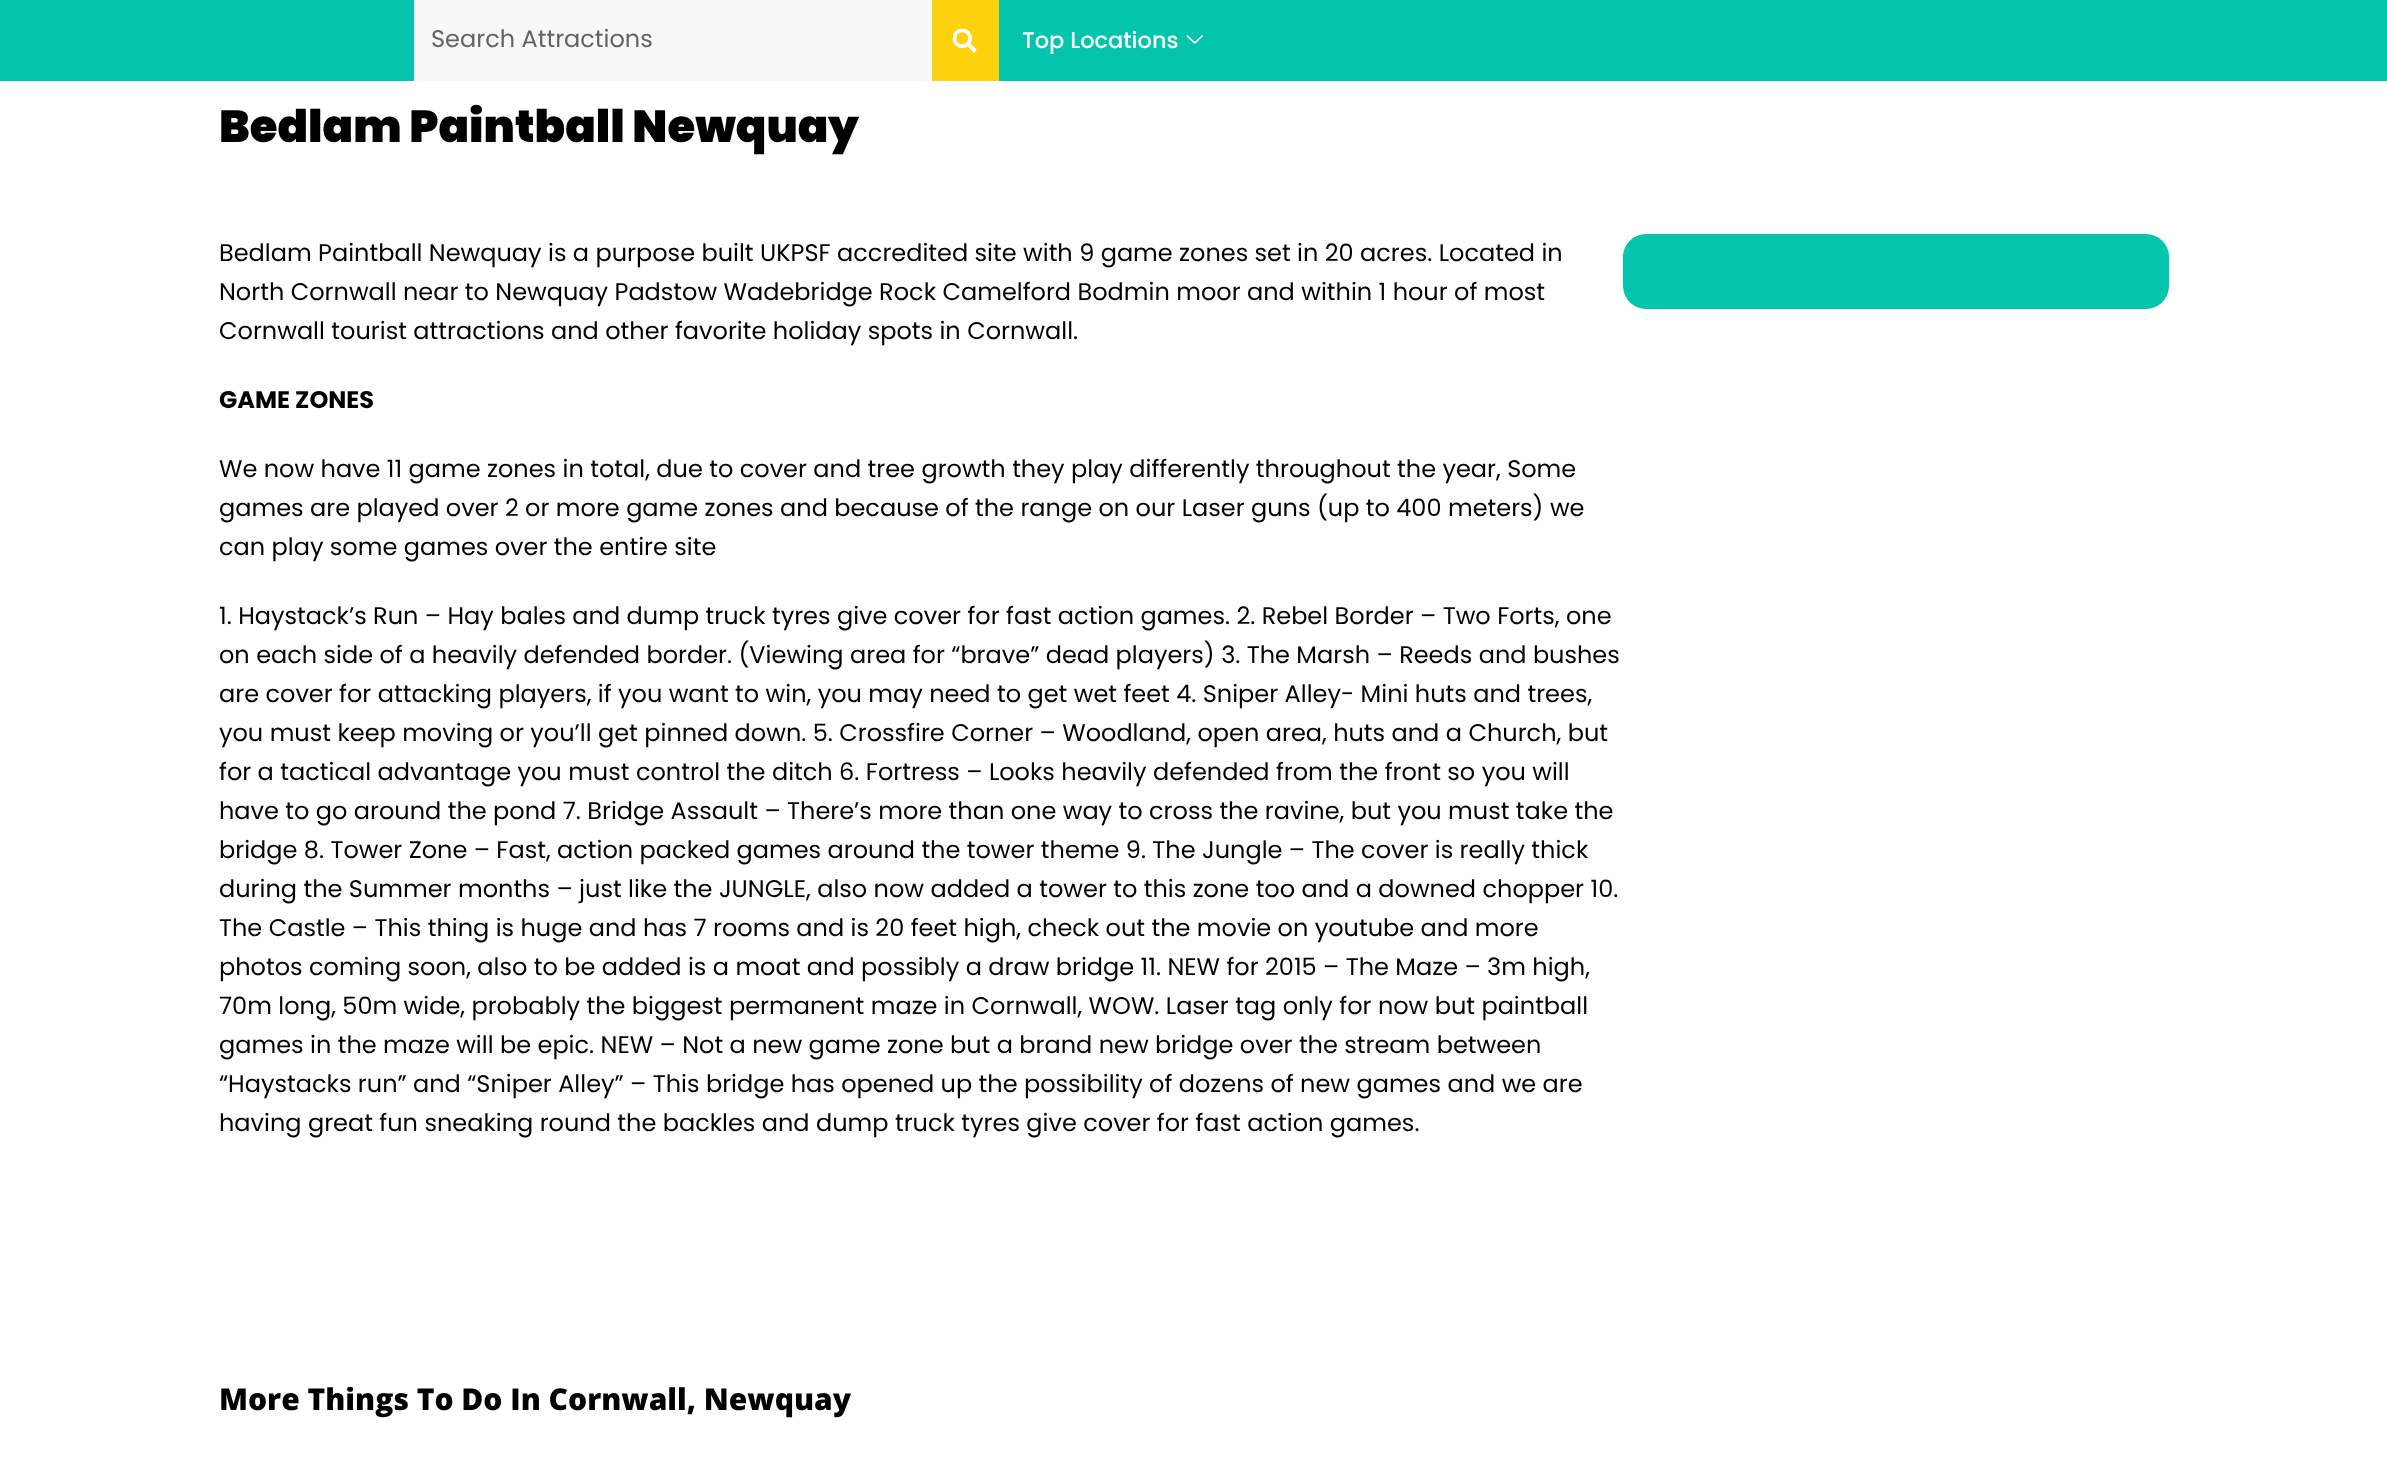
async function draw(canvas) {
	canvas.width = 2387;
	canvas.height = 1468;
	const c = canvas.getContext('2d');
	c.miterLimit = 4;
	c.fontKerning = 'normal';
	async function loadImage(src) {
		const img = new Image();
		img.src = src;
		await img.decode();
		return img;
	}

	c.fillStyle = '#fff';
	c.fillRect(0, 0, 2387, 1468);
	c.fillStyle = '#03c4ad';
	c.fillRect(0, 0, 2387, 81);
	c.fillStyle = '#f8f8f8';
	c.fillRect(414, 0, 518, 81);
	c.font = '24px Poppins';
	c.fillStyle = '#636363';
	c.fillText('Search Attractions', 431, 47);
	c.fillStyle = '#fbd20d';
	c.fillRect(932, 0, 67, 81);
	c.drawImage(await loadImage('img1.png'), 953, 29, 24, 24);
	c.font = '500 22.5px Poppins';
	c.fillStyle = '#fff';
	c.fillText('Top Locations', 1022, 48);
	c.drawImage(await loadImage('img2.png'), 1186, 35, 17, 9);
	c.font = '900 45px Poppins';
	c.fillStyle = '#000';
	c.fillText('Bedlam Paintball Newquay', 219, 142);
	c.font = '24px Poppins';
	for (const [text, x, y] of [
		['Bedlam Paintball Newquay is a purpose built UKPSF accredited site with 9 game zones set in 20 acres. Located in', 219, 261],
		['North Cornwall near to Newquay Padstow Wadebridge Rock Camelford Bodmin moor and within 1 hour of most', 219, 300],
		['Cornwall tourist attractions and other favorite holiday spots in Cornwall.', 219, 339],
	]) {
		c.fillText(text, x, y);
	}
	c.font = 'bold 24px Poppins';
	c.fillText('GAME ZONES', 219, 408);
	c.font = '24px Poppins';
	for (const [text, x, y] of [
		['We now have 11 game zones in total, due to cover and tree growth they play differently throughout the year, Some', 219, 477],
		['games are played over 2 or more game zones and because of the range on our Laser guns (up to 400 meters) we', 219, 516],
		['can play some games over the entire site', 219, 555],
		['1. Haystack’s Run – Hay bales and dump truck tyres give cover for fast action games. 2. Rebel Border – Two Forts, one', 219, 624],
		['on each side of a heavily defended border. (Viewing area for “brave” dead players) 3. The Marsh – Reeds and bushes', 219, 663],
		['are cover for attacking players, if you want to win, you may need to get wet feet 4. Sniper Alley- Mini huts and trees,', 219, 702],
		['you must keep moving or you’ll get pinned down. 5. Crossfire Corner – Woodland, open area, huts and a Church, but', 219, 741],
		['for a tactical advantage you must control the ditch 6. Fortress – Looks heavily defended from the front so you will', 219, 780],
		['have to go around the pond 7. Bridge Assault – There’s more than one way to cross the ravine, but you must take the', 219, 819],
		['bridge 8. Tower Zone – Fast, action packed games around the tower theme 9. The Jungle – The cover is really thick', 219, 858],
		['during the Summer months – just like the JUNGLE, also now added a tower to this zone too and a downed chopper 10.', 219, 897],
		['The Castle – This thing is huge and has 7 rooms and is 20 feet high, check out the movie on youtube and more', 219, 936],
		['photos coming soon, also to be added is a moat and possibly a draw bridge 11. NEW for 2015 – The Maze – 3m high,', 219, 975],
		['70m long, 50m wide, probably the biggest permanent maze in Cornwall, WOW. Laser tag only for now but paintball', 219, 1014],
		['games in the maze will be epic. NEW – Not a new game zone but a brand new bridge over the stream between', 219, 1053],
		['“Haystacks run” and “Sniper Alley” – This bridge has opened up the possibility of dozens of new games and we are', 219, 1092],
		['having great fun sneaking round the backles and dump truck tyres give cover for fast action games.', 219, 1131],
	]) {
		c.fillText(text, x, y);
	}
	c.fillStyle = '#03c4ad';
	c.beginPath();
	c.roundRect(1623, 234, 546, 75, 23);
	c.fill();
	c.font = '800 30px Open Sans';
	c.fillStyle = '#000';
	c.fillText('More Things To Do In Cornwall, Newquay', 219, 1410);
}

draw(document.querySelector('canvas'));
